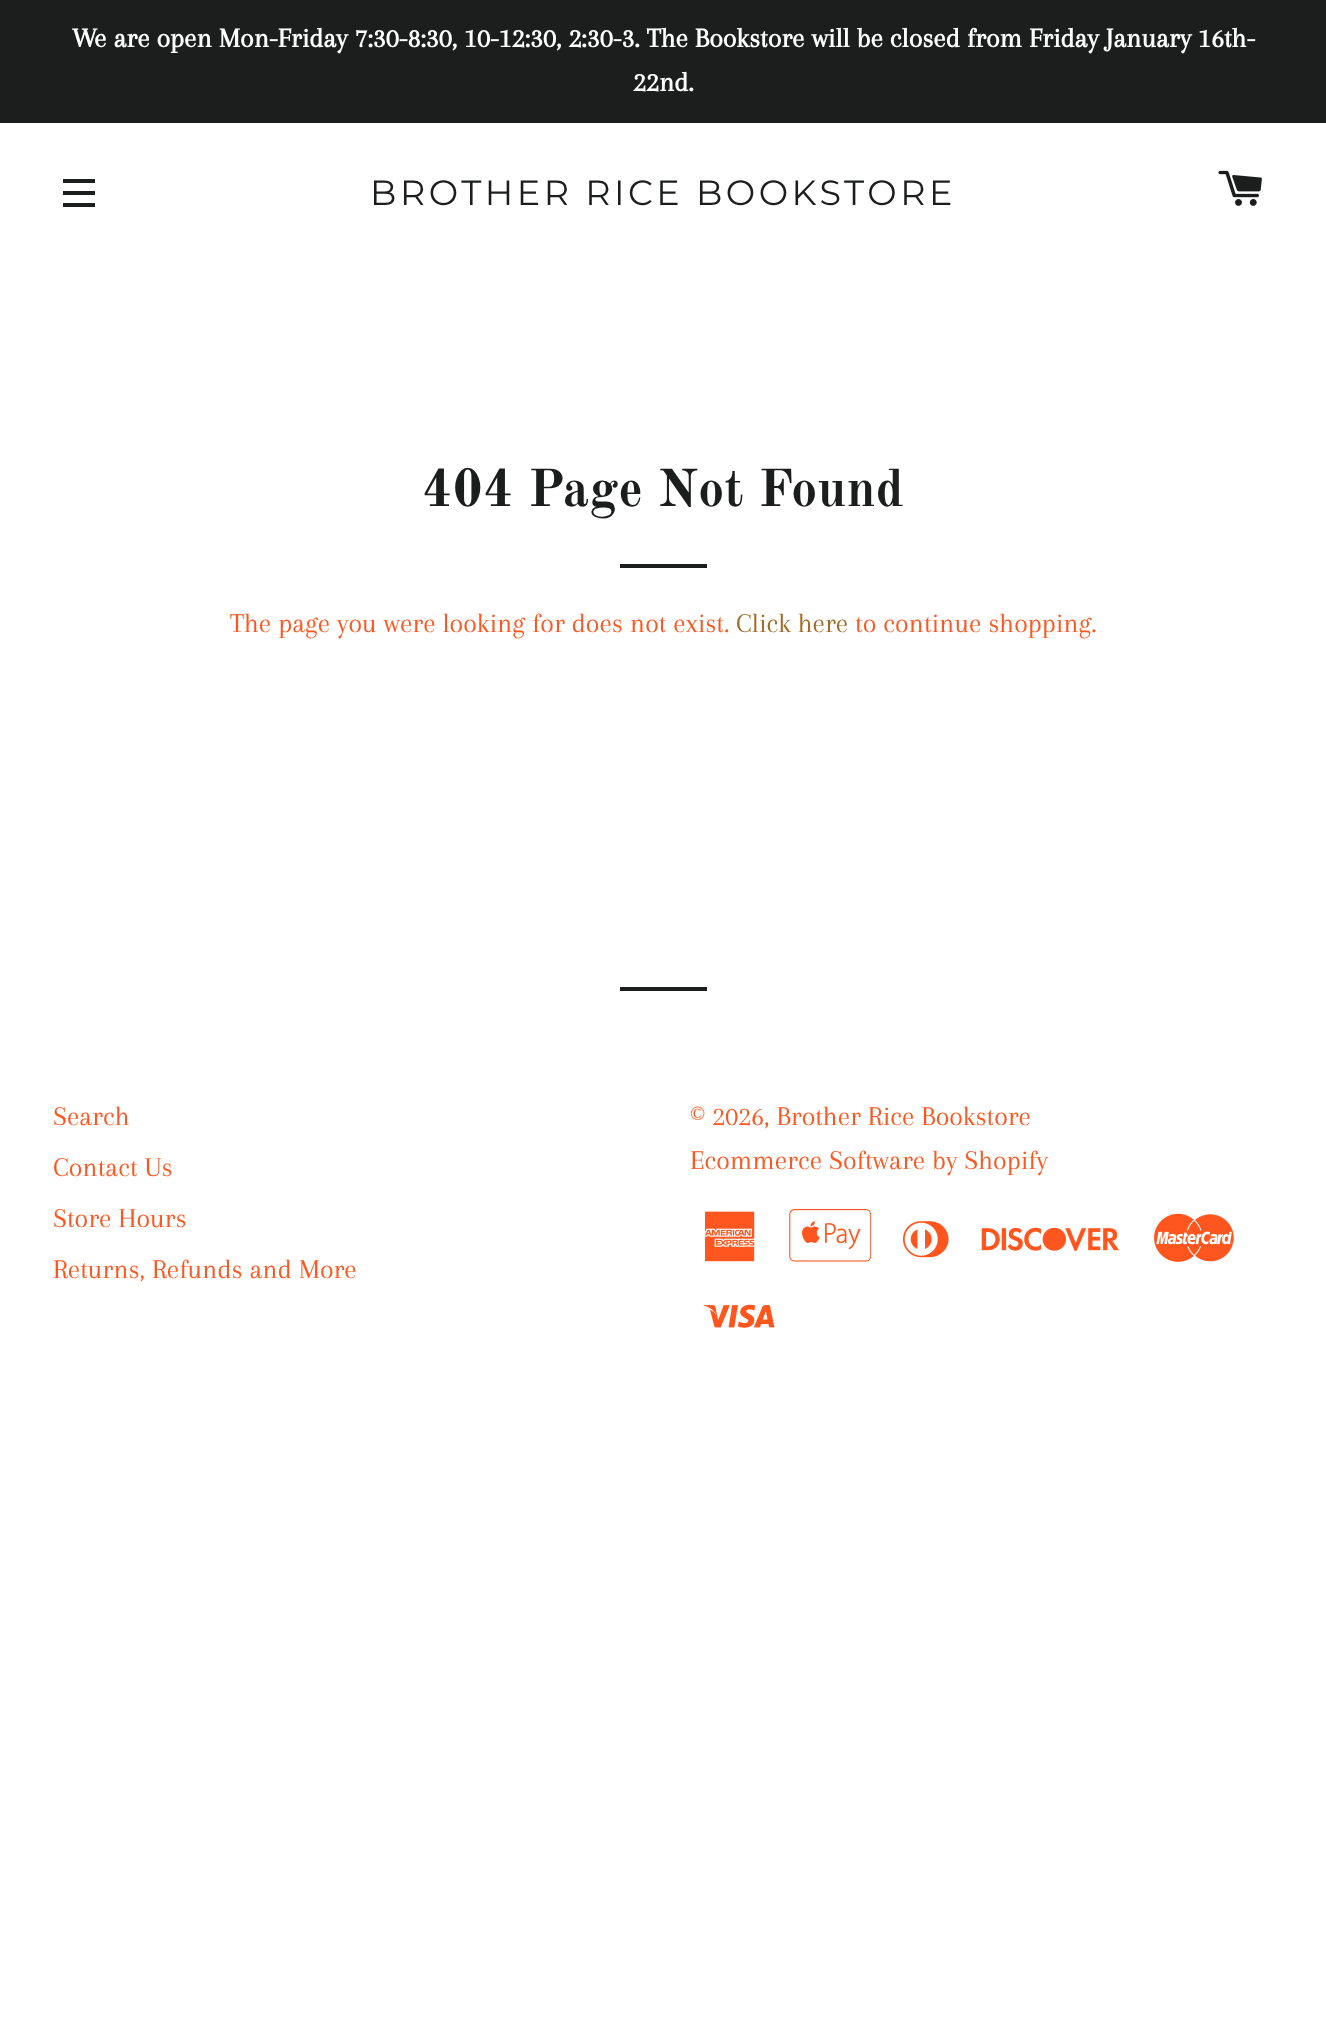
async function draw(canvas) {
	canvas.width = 1326;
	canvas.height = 2029;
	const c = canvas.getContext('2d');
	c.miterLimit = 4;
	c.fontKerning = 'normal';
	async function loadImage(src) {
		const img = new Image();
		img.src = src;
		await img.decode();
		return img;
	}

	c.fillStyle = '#fff';
	c.fillRect(0, 0, 1326, 2029);
	c.fillStyle = '#1c1d1d';
	c.fillRect(0, 0, 1326, 123);
	c.font = 'bold 28px Arapey';
	c.fillStyle = '#fff';
	c.fillText('We are open Mon-Friday 7:30-8:30, 10-12:30, 2:30-3. The Bookstore will be closed from Friday January 16th-', 72, 47);
	c.fillText('22nd.', 633, 91);
	for (const [x, y, w, h, color] of [
		[63, 179, 32, 4, '#1c1d1d'],
		[63, 191, 32, 4, '#1c1d1d'],
		[63, 203, 32, 4, '#1c1d1d'],
	]) {
		c.fillStyle = color;
		c.fillRect(x, y, w, h);
	}
	c.letterSpacing = '3.5px';
	c.font = '100 35px Montserrat';
	c.fillText('BROTHER RICE BOOKSTORE', 370, 205);
	c.drawImage(await loadImage('img1.png'), 1218, 170, 44, 36);
	c.letterSpacing = '0px';
	c.font = 'bold 52.5px Old Standard TT';
	c.fillText('404 Page Not Found', 422, 506);
	c.fillRect(620, 564, 87, 4);
	c.font = '28px Arapey';
	c.fillStyle = '#ff551e';
	c.fillText('The page you were looking for does not exist.', 230, 632);
	c.fillStyle = '#a26b25';
	c.fillText('Click here', 736, 632);
	c.fillStyle = '#ff551e';
	c.fillText('to continue shopping.', 855, 632);
	c.fillStyle = '#1c1d1d';
	c.fillRect(620, 987, 87, 4);
	c.fillStyle = '#ff551e';
	for (const [text, x, y] of [
		['Search', 53, 1125],
		['Contact Us', 53, 1176],
		['Store Hours', 53, 1227],
		['Returns, Refunds and More', 53, 1278],
		['© 2026, Brother Rice Bookstore', 690, 1125],
		['Ecommerce Software by Shopify', 690, 1169],
	]) {
		c.fillText(text, x, y);
	}
	c.drawImage(await loadImage('img2.png'), 705, 1211, 50, 51);
	c.drawImage(await loadImage('img3.png'), 789, 1209, 83, 53);
	c.drawImage(await loadImage('img4.png'), 903, 1221, 46, 37);
	c.drawImage(await loadImage('img5.png'), 981, 1227, 138, 24);
	c.drawImage(await loadImage('img6.png'), 1154, 1213, 80, 49);
	c.drawImage(await loadImage('img7.png'), 703, 1304, 72, 24);
}

draw(document.querySelector('canvas'));
